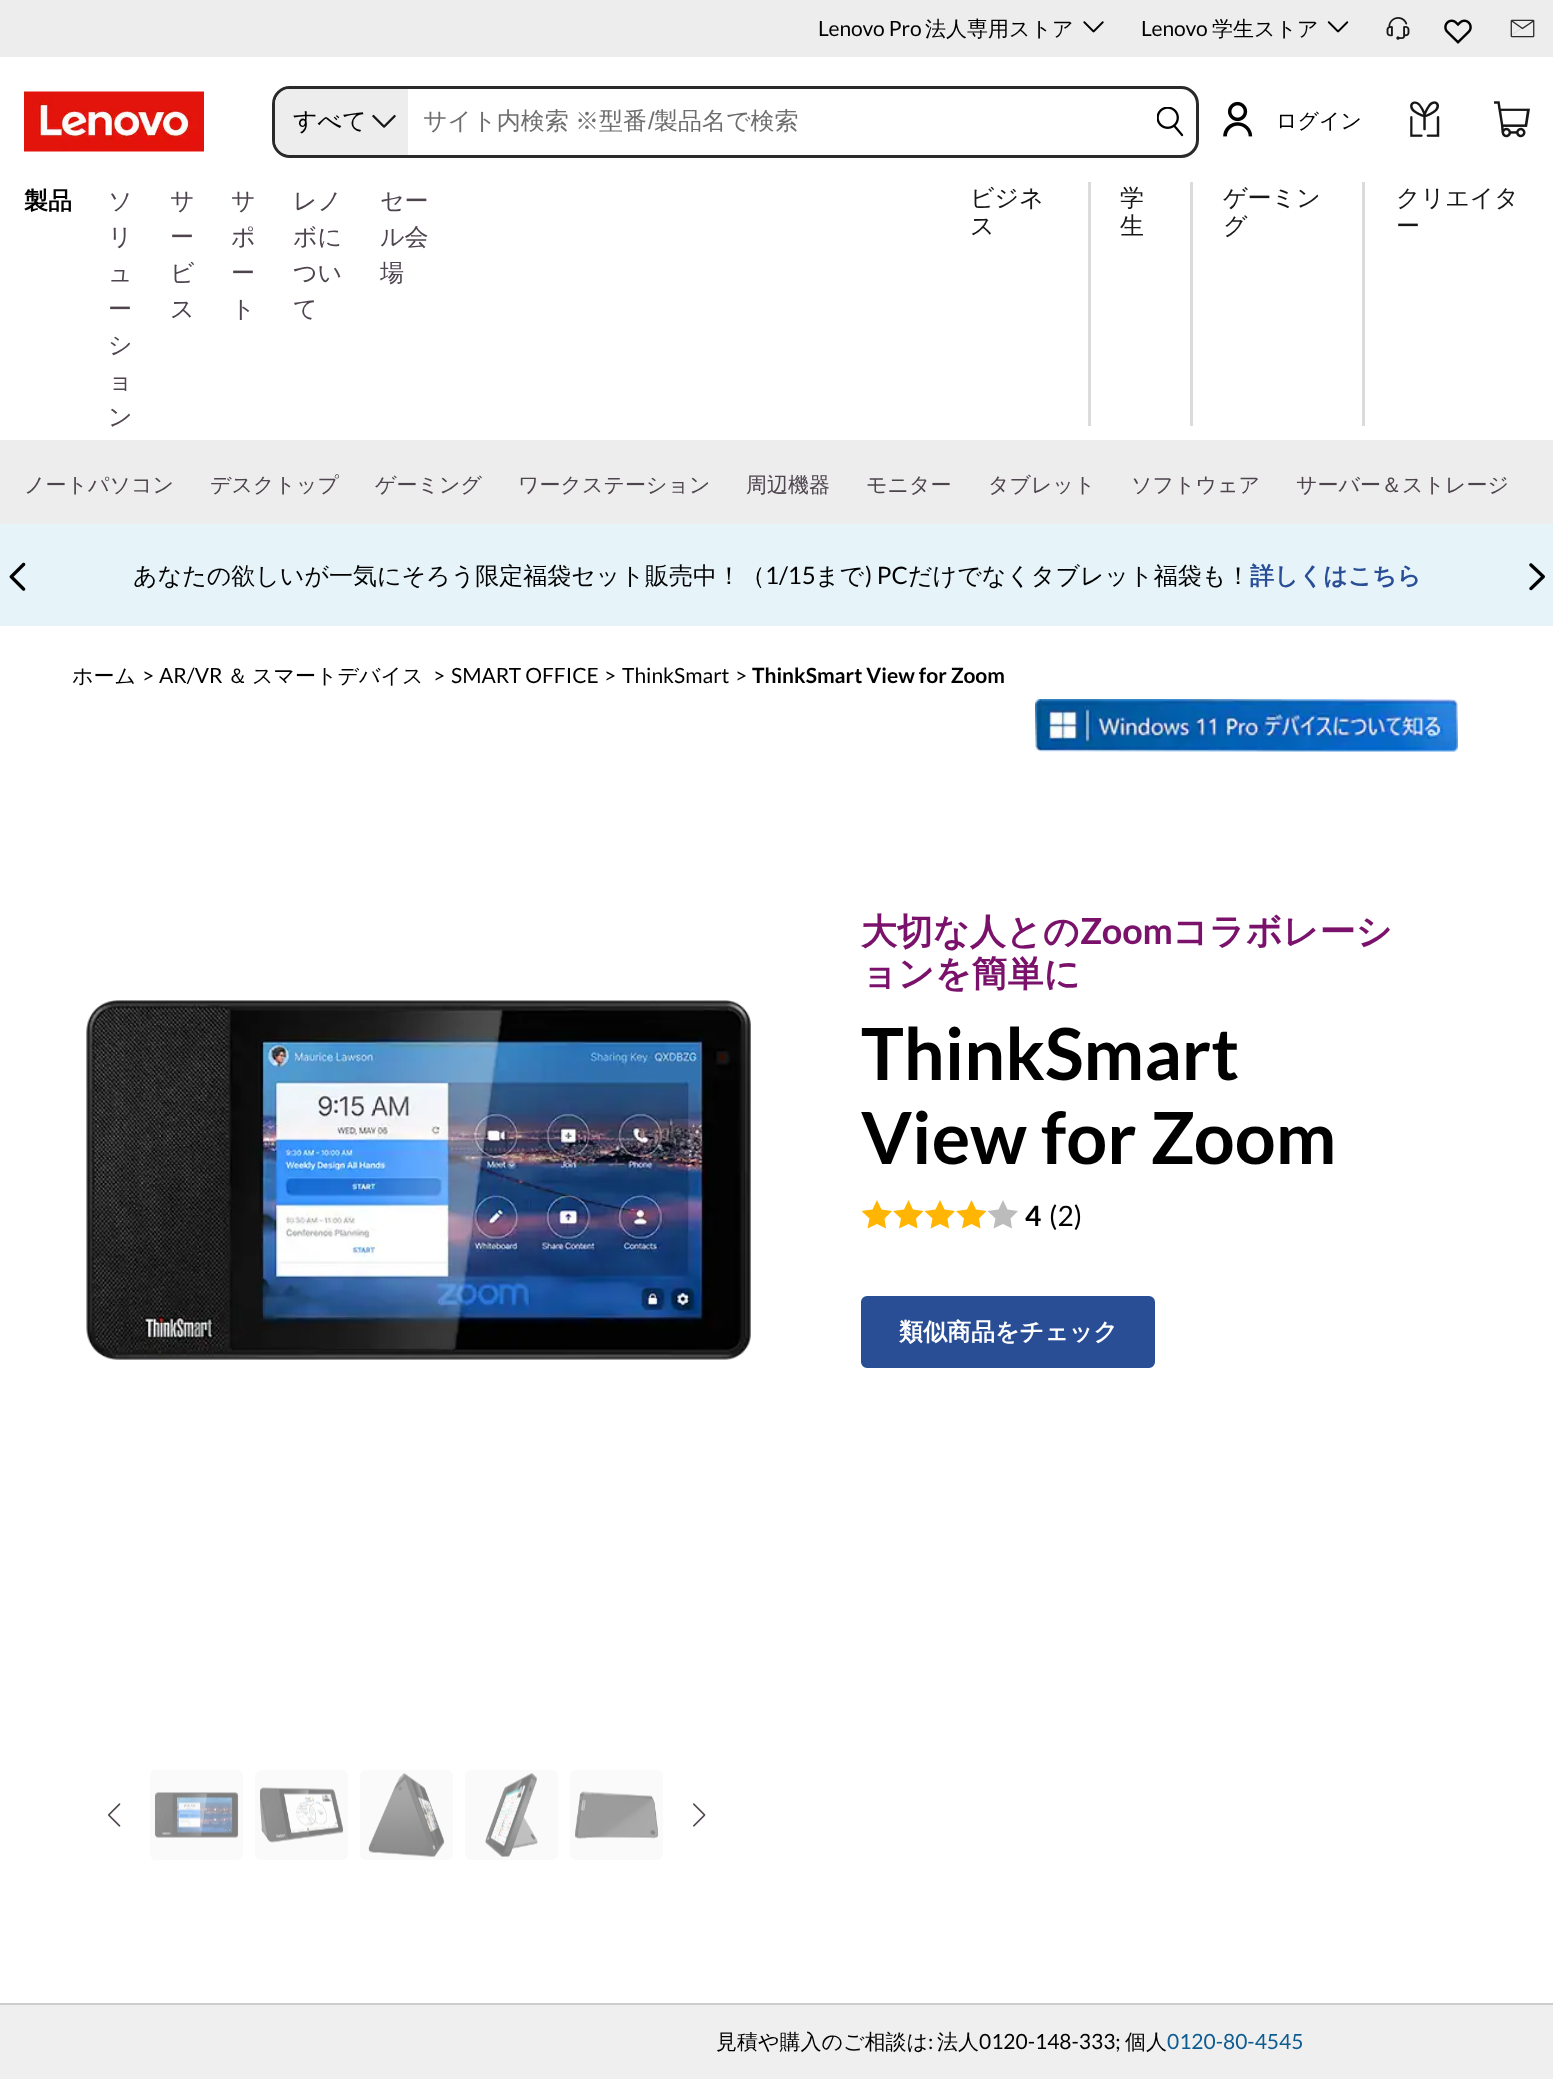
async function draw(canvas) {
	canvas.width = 1553;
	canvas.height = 2079;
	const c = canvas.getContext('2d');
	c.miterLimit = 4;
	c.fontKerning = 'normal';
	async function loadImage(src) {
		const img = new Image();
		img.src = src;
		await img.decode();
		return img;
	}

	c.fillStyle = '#fff';
	c.fillRect(0, 0, 1553, 2079);
	c.fillStyle = '#ededed';
	c.fillRect(0, 0, 1553, 57);
	c.font = '21px Lato';
	c.fillStyle = '#000';
	c.fillText('Lenovo Pro', 818, 36);
	c.font = '500 21px WenQuanYi Zen Hei';
	c.fillText('法人専用ストア', 925, 36);
	c.drawImage(await loadImage('img1.png'), 1083, 21, 21, 12);
	c.font = '21px Lato';
	c.fillText('Lenovo', 1141, 36);
	c.font = '500 21px WenQuanYi Zen Hei';
	c.fillText('学生ストア', 1212, 36);
	c.drawImage(await loadImage('img2.png'), 1327, 21, 22, 12);
	c.drawImage(await loadImage('img3.png'), 1386, 17, 24, 23);
	c.drawImage(await loadImage('img4.png'), 1444, 19, 28, 25);
	c.drawImage(await loadImage('img5.png'), 1509, 19, 26, 19);
	c.drawImage(await loadImage('img6.png'), 24, 91, 180, 61);
	c.beginPath();
	c.roundRect(273.5, 87.5, 924, 69, 16.5);
	c.strokeStyle = '#2a2a2a';
	c.lineWidth = 3;
	c.stroke();
	c.fillStyle = '#ededed';
	c.beginPath();
	c.roundRect(275, 89, 133, 66, [15, 0, 0, 15]);
	c.fill();
	c.font = '500 24px WenQuanYi Zen Hei';
	c.fillStyle = '#000';
	c.fillText('すべて', 293, 129);
	c.drawImage(await loadImage('img7.png'), 372, 114, 24, 14);
	c.wordSpacing = '-1px';
	c.fillStyle = '#6f6d6e';
	c.fillText('サイト内検索 ※型番', 423, 129);
	c.wordSpacing = '0px';
	c.font = '24px Liberation Sans';
	c.fillText('/', 648, 129);
	c.font = '500 24px WenQuanYi Zen Hei';
	c.fillText('製品名で検索', 654, 129);
	c.drawImage(await loadImage('img8.png'), 1157, 107, 27, 30);
	c.drawImage(await loadImage('img9.png'), 1223, 101, 30, 36);
	c.font = '500 21px WenQuanYi Zen Hei';
	c.fillStyle = '#000';
	c.fillText('ログイン', 1276, 128);
	c.drawImage(await loadImage('img10.png'), 1410, 101, 30, 36);
	c.drawImage(await loadImage('img11.png'), 1494, 101, 36, 37);
	c.font = 'bold 24px WenQuanYi Zen Hei';
	c.fillText('製品', 24, 209);
	c.font = '500 24px WenQuanYi Zen Hei';
	c.fillStyle = '#4e444e';
	for (const [text, x, y] of [
		['ソ', 108, 209],
		['リ', 108, 245],
		['ュ', 108, 281],
		['ー', 108, 317],
		['シ', 108, 353],
		['ョ', 108, 389],
		['ン', 108, 425],
		['サ', 170, 209],
		['ー', 170, 245],
		['ビ', 170, 281],
		['ス', 170, 317],
		['サ', 231, 209],
		['ポ', 231, 245],
		['ー', 231, 281],
		['ト', 231, 317],
		['レノ', 293, 209],
		['ボに', 293, 245],
		['つい', 293, 281],
		['て', 293, 317],
		['セー', 380, 209],
		['ル会', 380, 245],
		['場', 380, 281],
	]) {
		c.fillText(text, x, y);
	}
	c.fillStyle = '#171717';
	c.fillText('ビジネ', 970, 206);
	c.fillText('ス', 970, 234);
	c.fillStyle = '#dbdbdb';
	c.fillRect(1088, 182, 3, 244);
	c.fillStyle = '#171717';
	c.fillText('学', 1120, 206);
	c.fillText('生', 1120, 234);
	c.fillStyle = '#dbdbdb';
	c.fillRect(1190, 182, 3, 244);
	c.fillStyle = '#171717';
	c.fillText('ゲーミン', 1223, 206);
	c.fillText('グ', 1223, 234);
	c.fillStyle = '#dbdbdb';
	c.fillRect(1362, 182, 3, 244);
	c.fillStyle = '#171717';
	c.fillText('クリエイタ', 1396, 206);
	c.fillText('ー', 1396, 234);
	c.fillStyle = '#ededed';
	c.fillRect(0, 440, 1553, 84);
	c.font = '500 21px WenQuanYi Zen Hei';
	c.fillStyle = '#4e444e';
	for (const [text, x, y] of [
		['ノートパソコン', 24, 492],
		['デスクトップ', 210, 492],
		['ゲーミング', 375, 492],
		['ワークステーション', 518, 492],
		['周辺機器', 746, 492],
		['モニター', 866, 492],
		['タブレット', 988, 492],
		['ソフトウェア', 1131, 492],
		['サーバー＆ストレージ', 1296, 492],
	]) {
		c.fillText(text, x, y);
	}
	c.fillStyle = '#e6f4fa';
	c.fillRect(0, 524, 1553, 102);
	c.drawImage(await loadImage('img12.png'), 9, 562, 17, 29);
	c.font = '500 24px WenQuanYi Zen Hei';
	c.fillStyle = '#000';
	c.fillText('あなたの欲しいが一気にそろう限定福袋セット販売中！（', 133, 584);
	c.font = '24px Lato';
	c.fillText('1/15', 765, 584);
	c.font = '500 24px WenQuanYi Zen Hei';
	c.fillText('まで', 815, 584);
	c.font = '24px Lato';
	c.fillText(') PC', 865, 584);
	c.font = '500 24px WenQuanYi Zen Hei';
	c.fillText('だけでなくタブレット福袋も！', 908, 584);
	c.font = 'bold 24px WenQuanYi Zen Hei';
	c.fillStyle = '#294e95';
	c.fillText('詳しくはこちら', 1250, 584);
	c.drawImage(await loadImage('img13.png'), 1529, 563, 16, 28);
	c.font = '500 21px WenQuanYi Zen Hei';
	c.fillStyle = '#000';
	c.fillText('ホーム', 72, 683);
	c.font = '21px Lato';
	c.fillText('>', 142, 683);
	c.fillText('AR/VR', 159, 683);
	c.font = '500 21px WenQuanYi Zen Hei';
	c.fillText('＆', 227, 683);
	c.fillText('スマートデバイス', 252, 683);
	c.font = '21px Lato';
	for (const [text, x, y] of [
		['>', 433, 683],
		['SMART OFFICE', 451, 683],
		['>', 604, 683],
		['ThinkSmart', 622, 683],
		['>', 735, 683],
	]) {
		c.fillText(text, x, y);
	}
	c.font = 'bold 21px Lato';
	c.fillText('ThinkSmart View for Zoom', 752, 683);
	c.drawImage(await loadImage('img14.png'), 1035, 699, 423, 53);
	c.drawImage(await loadImage('img15.png'), 86, 1000, 665, 360);
	c.drawImage(await loadImage('img16.png'), 108, 1803, 13, 24);
	c.fillStyle = '#fafafa';
	c.beginPath();
	c.roundRect(150, 1770, 93, 90, 6);
	c.fill();
	c.drawImage(await loadImage('img17.png'), 155, 1792, 84, 46);
	c.beginPath();
	c.roundRect(255, 1770, 93, 90, 6);
	c.fill();
	c.drawImage(await loadImage('img18.png'), 260, 1787, 84, 56);
	c.beginPath();
	c.roundRect(360, 1770, 93, 90, 6);
	c.fill();
	c.drawImage(await loadImage('img19.png'), 368, 1773, 77, 84);
	c.beginPath();
	c.roundRect(465, 1770, 93, 90, 6);
	c.fill();
	c.drawImage(await loadImage('img20.png'), 485, 1773, 53, 84);
	c.beginPath();
	c.roundRect(570, 1770, 93, 90, 6);
	c.fill();
	c.drawImage(await loadImage('img21.png'), 575, 1791, 84, 48);
	c.drawImage(await loadImage('img22.png'), 693, 1803, 13, 24);
	c.font = 'bold 36px WenQuanYi Zen Hei';
	c.fillStyle = '#7a126b';
	c.fillText('大切な人との', 861, 944);
	c.font = 'bold 36px Lato';
	c.fillText('Zoom', 1080, 944);
	c.font = 'bold 36px WenQuanYi Zen Hei';
	c.fillText('コラボレーシ', 1172, 944);
	c.fillText('ョンを簡単に', 861, 986);
	c.font = 'bold 72px Lato';
	c.fillStyle = '#000';
	c.fillText('ThinkSmart', 861, 1080);
	c.fillText('View for Zoom', 861, 1164);
	c.fillStyle = '#ffb501';
	c.beginPath();
	c.moveTo(877, 1224);
	c.lineTo(867.5, 1228.5);
	c.lineTo(869.5, 1218.5);
	c.lineTo(861.5, 1211);
	c.lineTo(872.5, 1209.5);
	c.lineTo(877, 1200);
	c.lineTo(881.5, 1209.5);
	c.lineTo(892, 1211);
	c.lineTo(884.5, 1218.5);
	c.lineTo(886, 1228.5);
	c.closePath();
	c.moveTo(908.5, 1224);
	c.lineTo(899, 1228.5);
	c.lineTo(901, 1218.5);
	c.lineTo(893, 1211);
	c.lineTo(904, 1209.5);
	c.lineTo(908.5, 1200);
	c.lineTo(913, 1209.5);
	c.lineTo(923.5, 1211);
	c.lineTo(916, 1218.5);
	c.lineTo(917.5, 1228.5);
	c.closePath();
	c.fill();
	c.beginPath();
	c.moveTo(940, 1224);
	c.lineTo(930.5, 1228.5);
	c.lineTo(932.5, 1218.5);
	c.lineTo(924.5, 1211);
	c.lineTo(935.5, 1209.5);
	c.lineTo(940, 1200);
	c.lineTo(944.5, 1209.5);
	c.lineTo(955, 1211);
	c.lineTo(947.5, 1218.5);
	c.lineTo(949, 1228.5);
	c.closePath();
	c.moveTo(971.5, 1224);
	c.lineTo(962, 1228.5);
	c.lineTo(964, 1218.5);
	c.lineTo(956, 1211);
	c.lineTo(967, 1209.5);
	c.lineTo(971.5, 1200);
	c.lineTo(976, 1209.5);
	c.lineTo(986.5, 1211);
	c.lineTo(979, 1218.5);
	c.lineTo(980.5, 1228.5);
	c.closePath();
	c.fill();
	c.fillStyle = '#bcbcbc';
	c.beginPath();
	c.moveTo(1003, 1224);
	c.lineTo(993.5, 1228.5);
	c.lineTo(995.5, 1218.5);
	c.lineTo(987.5, 1211);
	c.lineTo(998.5, 1209.5);
	c.lineTo(1003, 1200);
	c.lineTo(1007.5, 1209.5);
	c.lineTo(1018, 1211);
	c.lineTo(1010.5, 1218.5);
	c.lineTo(1012, 1228.5);
	c.closePath();
	c.fill();
	c.font = 'bold 28px Lato';
	c.fillStyle = '#000';
	c.fillText('4', 1025, 1226);
	c.font = '28px Lato';
	c.fillText('(2)', 1049, 1226);
	c.fillStyle = '#294e95';
	c.beginPath();
	c.roundRect(862, 1297, 292, 70, 5);
	c.fill();
	c.strokeStyle = '#294e95';
	c.lineWidth = 2;
	c.stroke();
	c.font = 'bold 24px WenQuanYi Zen Hei';
	c.fillStyle = '#fff';
	c.fillText('類似商品をチェック', 899, 1340);
	c.fillStyle = '#efefef';
	c.fillRect(0, 2005, 1553, 74);
	c.fillStyle = '#ccc';
	c.fillRect(0, 2003, 1553, 2);
	c.font = '500 21px WenQuanYi Zen Hei';
	c.fillStyle = '#000';
	c.fillText('見積や購入のご相談は', 716, 2049);
	c.font = '21px Lato';
	c.fillText(':', 928, 2049);
	c.font = '500 21px WenQuanYi Zen Hei';
	c.fillText('法人', 937, 2049);
	c.font = '21px Lato';
	c.fillText('0120-148-333;', 979, 2049);
	c.font = '500 21px WenQuanYi Zen Hei';
	c.fillText('個人', 1125, 2049);
	c.font = '21px Lato';
	c.fillStyle = '#0d5c91';
	c.fillText('0120-80-4545', 1167, 2049);
}

draw(document.querySelector('canvas'));
